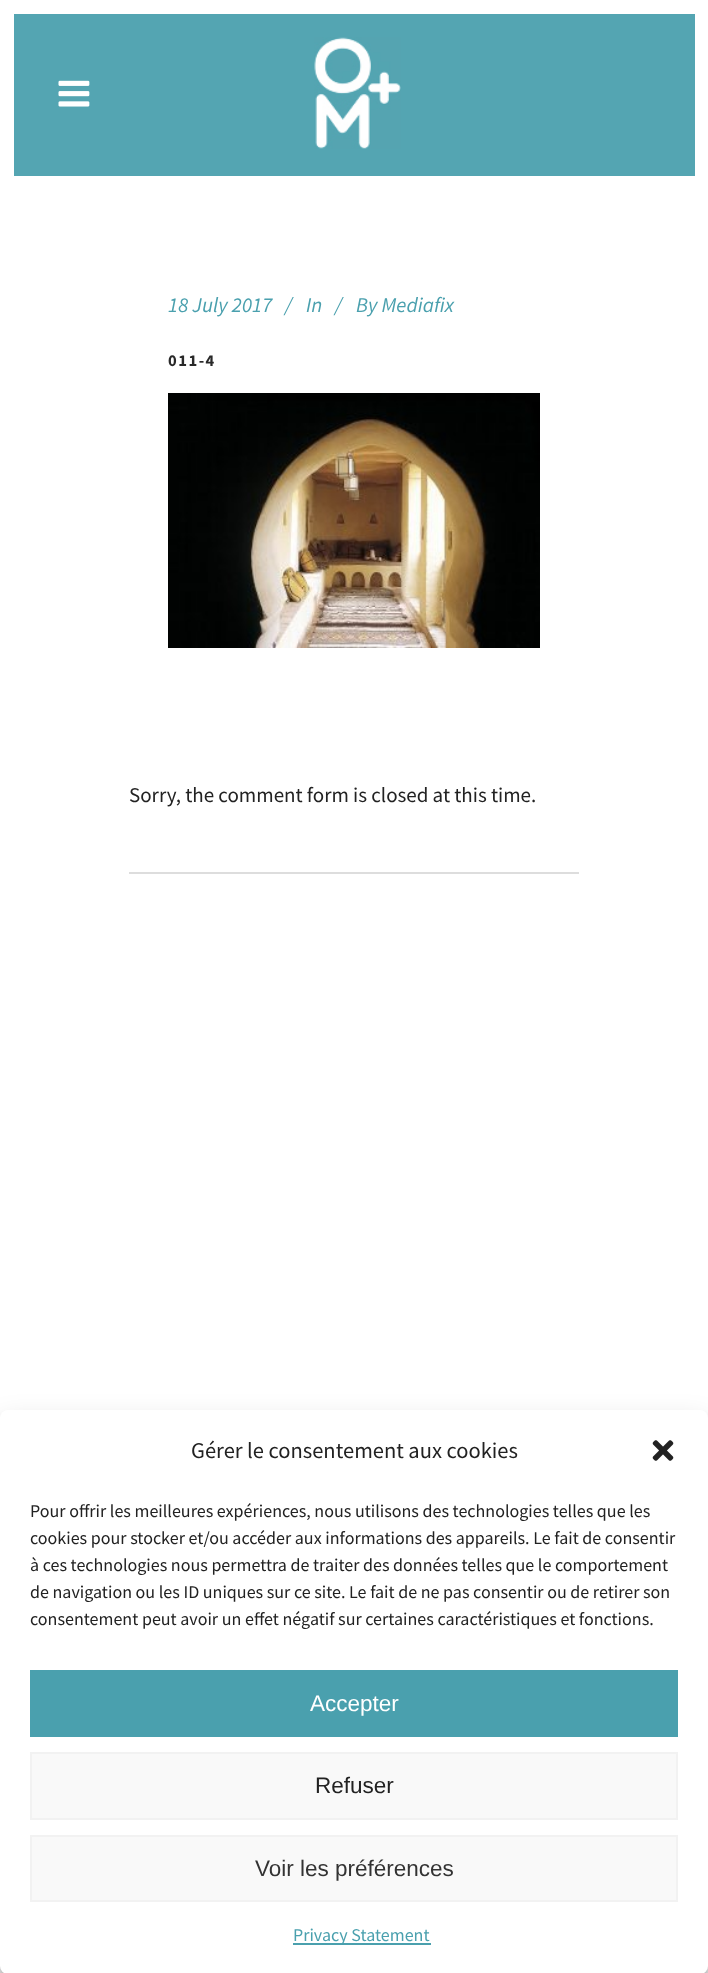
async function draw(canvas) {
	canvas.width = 708;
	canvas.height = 1973;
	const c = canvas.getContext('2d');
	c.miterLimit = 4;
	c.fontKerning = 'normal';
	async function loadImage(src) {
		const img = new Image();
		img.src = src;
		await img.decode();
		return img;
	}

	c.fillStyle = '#fff';
	c.fillRect(0, 0, 708, 1973);
	c.fillStyle = '#54a5b2';
	c.fillRect(14, 14, 681, 162);
	c.drawImage(await loadImage('img1.png'), 58, 80, 32, 27);
	c.drawImage(await loadImage('img2.png'), 314, 37, 87, 112);
	c.font = 'italic 21px Source Sans Pro';
	c.fillStyle = '#4aa0ae';
	for (const [text, x, y] of [
		['18 July 2017', 168, 312],
		['/', 285, 312],
		['In', 306, 312],
		['/', 335, 312],
		['By Mediafix', 356, 312],
	]) {
		c.fillText(text, x, y);
	}
	c.letterSpacing = '1.5px';
	c.font = 'bold 16.5px Source Sans Pro';
	c.fillStyle = '#292929';
	c.fillText('011-4', 168, 366);
	c.drawImage(await loadImage('img3.png'), 168, 393, 372, 255);
	c.letterSpacing = '0px';
	c.font = '21px Source Sans Pro';
	c.fillStyle = '#222';
	c.fillText('Sorry, the comment form is closed at this time.', 129, 802);
	c.fillStyle = '#ddd';
	c.fillRect(129, 872, 450, 2);
	c.fillStyle = '#0000003b';
	c.filter = 'blur(4.5px)';
	c.beginPath();
	c.roundRect(0, 1419, 708, 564, 8);
	c.fill();
	c.filter = 'none';
	c.fillStyle = '#00000030';
	c.filter = 'blur(15px)';
	c.beginPath();
	c.roundRect(0, 1425, 708, 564, 8);
	c.fill();
	c.filter = 'none';
	c.fillStyle = '#fff';
	c.beginPath();
	c.roundRect(0, 1410, 708, 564, 8);
	c.fill();
	c.font = '22.5px Source Sans Pro';
	c.fillStyle = '#222';
	c.fillText('Gérer le consentement aux cookies', 191, 1458);
	c.drawImage(await loadImage('img4.png'), 652, 1440, 22, 21);
	c.font = '18px Source Sans Pro';
	for (const [text, x, y] of [
		['Pour offrir les meilleures expériences, nous utilisons des technologies telles que les', 30, 1517],
		['cookies pour stocker et/ou accéder aux informations des appareils. Le fait de consentir', 30, 1544],
		['à ces technologies nous permettra de traiter des données telles que le comportement', 30, 1571],
		['de navigation ou les ID uniques sur ce site. Le fait de ne pas consentir ou de retirer son', 30, 1598],
		['consentement peut avoir un effet négatif sur certaines caractéristiques et fonctions.', 30, 1625],
	]) {
		c.fillText(text, x, y);
	}
	c.fillStyle = '#4aa0ae';
	c.fillRect(30, 1670, 648, 67);
	c.font = '22.5px Liberation Sans';
	c.fillStyle = '#fff';
	c.fillText('Accepter', 310, 1711);
	c.fillStyle = '#f9f9f9';
	c.beginPath();
	c.rect(31, 1753, 646, 66);
	c.fill();
	c.strokeStyle = '#f2f2f2';
	c.lineWidth = 2;
	c.stroke();
	c.fillStyle = '#222';
	c.fillText('Refuser', 315, 1793);
	c.fillStyle = '#f9f9f9';
	c.beginPath();
	c.rect(31, 1836, 646, 65);
	c.fill();
	c.stroke();
	c.fillStyle = '#333';
	c.fillText('Voir les préférences', 255, 1876);
	c.fillStyle = '#4aa0ae';
	c.fillRect(293, 1943, 138, 2);
	c.font = '18px Source Sans Pro';
	c.fillText('Privacy Statement', 293, 1941);
}

draw(document.querySelector('canvas'));
